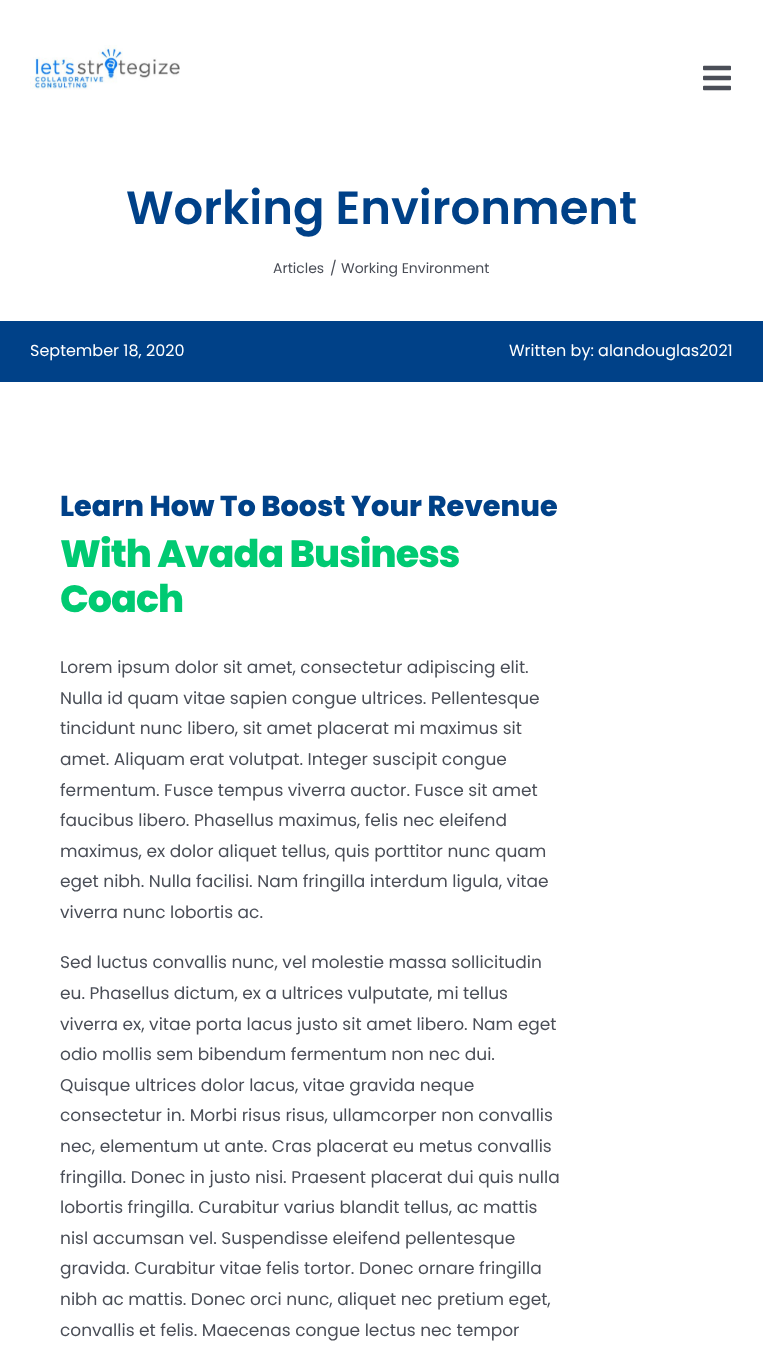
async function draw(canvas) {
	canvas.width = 763;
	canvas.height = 1346;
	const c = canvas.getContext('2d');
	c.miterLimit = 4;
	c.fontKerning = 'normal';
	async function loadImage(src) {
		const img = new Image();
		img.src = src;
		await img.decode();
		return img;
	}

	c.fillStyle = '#fff';
	c.fillRect(0, 0, 763, 1346);
	c.drawImage(await loadImage('img1.png'), 30, 45, 150, 45);
	c.drawImage(await loadImage('img2.png'), 703, 65, 28, 26);
	c.font = '600 46.5px Poppins';
	c.fillStyle = '#004188';
	c.fillText('Working Environment', 126, 224);
	c.font = '14px Poppins';
	c.fillStyle = '#4a4e57';
	for (const [text, x, y] of [
		['Articles', 273, 273],
		['/', 330, 273],
		['Working Environment', 341, 273],
	]) {
		c.fillText(text, x, y);
	}
	c.fillStyle = '#004188';
	c.fillRect(0, 321, 763, 61);
	c.font = '16px Poppins';
	c.fillStyle = '#fff';
	c.fillText('September 18, 2020', 30, 356);
	c.fillText('Written by: alandouglas2021', 509, 356);
	c.font = '800 28.75px Poppins';
	c.fillStyle = '#004188';
	c.fillText('Learn How To Boost Your Revenue', 60, 516);
	c.letterSpacing = '-1px';
	c.font = '800 38.1px Poppins';
	c.fillStyle = '#00ca72';
	c.fillText('With Avada Business', 60, 567);
	c.fillText('Coach', 60, 612);
	c.letterSpacing = '0px';
	c.font = '17px Poppins';
	c.fillStyle = '#4a4e57';
	for (const [text, x, y] of [
		['Lorem ipsum dolor sit amet, consectetur adipiscing elit.', 60, 673],
		['Nulla id quam vitae sapien congue ultrices. Pellentesque', 60, 704],
		['tincidunt nunc libero, sit amet placerat mi maximus sit', 60, 734],
		['amet. Aliquam erat volutpat. Integer suscipit congue', 60, 765],
		['fermentum. Fusce tempus viverra auctor. Fusce sit amet', 60, 796],
		['faucibus libero. Phasellus maximus, felis nec eleifend', 60, 826],
		['maximus, ex dolor aliquet tellus, quis porttitor nunc quam', 60, 857],
		['eget nibh. Nulla facilisi. Nam fringilla interdum ligula, vitae', 60, 887],
		['viverra nunc lobortis ac.', 60, 918],
		['Sed luctus convallis nunc, vel molestie massa sollicitudin', 60, 968],
		['eu. Phasellus dictum, ex a ultrices vulputate, mi tellus', 60, 999],
		['viverra ex, vitae porta lacus justo sit amet libero. Nam eget', 60, 1030],
		['odio mollis sem bibendum fermentum non nec dui.', 60, 1060],
		['Quisque ultrices dolor lacus, vitae gravida neque', 60, 1091],
		['consectetur in. Morbi risus risus, ullamcorper non convallis', 60, 1121],
		['nec, elementum ut ante. Cras placerat eu metus convallis', 60, 1152],
		['fringilla. Donec in justo nisi. Praesent placerat dui quis nulla', 60, 1183],
		['lobortis fringilla. Curabitur varius blandit tellus, ac mattis', 60, 1213],
		['nisl accumsan vel. Suspendisse eleifend pellentesque', 60, 1244],
		['gravida. Curabitur vitae felis tortor. Donec ornare fringilla', 60, 1274],
		['nibh ac mattis. Donec orci nunc, aliquet nec pretium eget,', 60, 1305],
		['convallis et felis. Maecenas congue lectus nec tempor', 60, 1336],
	]) {
		c.fillText(text, x, y);
	}
}

draw(document.querySelector('canvas'));
